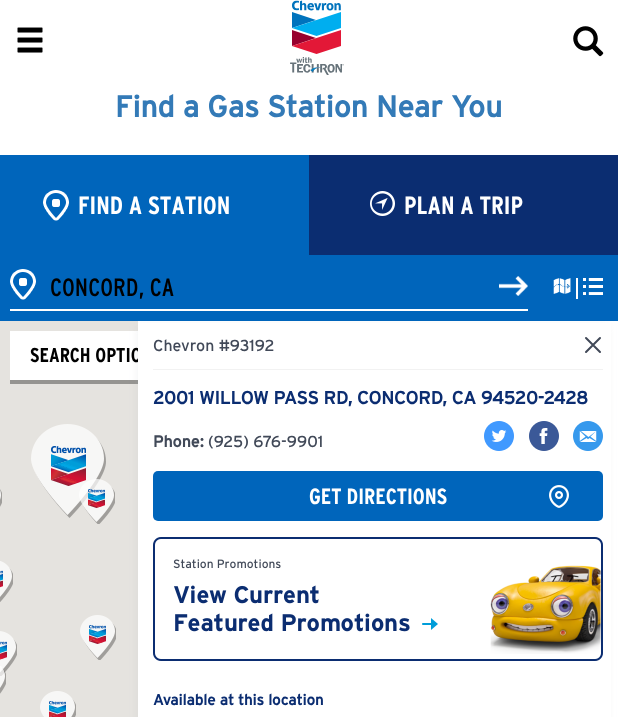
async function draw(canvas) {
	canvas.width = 618;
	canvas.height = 717;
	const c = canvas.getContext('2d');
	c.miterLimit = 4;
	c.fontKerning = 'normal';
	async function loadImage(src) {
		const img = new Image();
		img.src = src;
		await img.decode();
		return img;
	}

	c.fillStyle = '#fff';
	c.fillRect(0, 0, 618, 717);
	c.drawImage(await loadImage('img1.png'), 17, 27, 26, 26);
	c.drawImage(await loadImage('img2.png'), 290, 0, 54, 75);
	c.drawImage(await loadImage('img3.png'), 573, 26, 31, 31);
	c.font = 'bold 30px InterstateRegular';
	c.fillStyle = '#337ab7';
	c.fillText('Find a Gas Station Near You', 115, 117);
	for (const [x, y, w, h, color] of [
		[0, 321, 138, 396, '#e5e3df'],
		[10, 331, 128, 49, '#fff'],
		[10, 380, 128, 4, '#959491'],
	]) {
		c.fillStyle = color;
		c.fillRect(x, y, w, h);
	}
	c.fillStyle = '#abaeb629';
	c.filter = 'blur(4px)';
	c.beginPath();
	c.rect(138, 326, 470, 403);
	c.fill();
	c.filter = 'none';
	c.fillStyle = '#0065bb';
	c.fillRect(0, 155, 618, 166);
	c.drawImage(await loadImage('img4.png'), 43, 190, 26, 31);
	c.font = 'bold 25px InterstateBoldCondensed';
	c.fillStyle = '#fff';
	c.fillText('FIND A STATION', 78, 214);
	c.fillStyle = '#0b2d71';
	c.fillRect(309, 155, 309, 100);
	c.drawImage(await loadImage('img5.png'), 370, 191, 25, 25);
	c.fillStyle = '#fff';
	c.fillText('PLAN A TRIP', 404, 214);
	c.fillRect(10, 309, 518, 2);
	c.drawImage(await loadImage('img4.png'), 10, 269, 26, 31);
	c.font = '25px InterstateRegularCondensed';
	c.fillStyle = '#000';
	c.fillText('CONCORD, CA', 50, 296);
	c.drawImage(await loadImage('img6.png'), 499, 276, 29, 20);
	c.fillStyle = '#fff';
	c.fillRect(576, 278, 2, 21);
	c.drawImage(await loadImage('img7.png'), 553, 278, 18, 16);
	c.drawImage(await loadImage('img8.png'), 583, 278, 20, 17);
	c.drawImage(await loadImage('img9.png'), 31, 424, 75, 94);
	c.drawImage(await loadImage('img10.png'), 0, 489, 2, 18);
	c.drawImage(await loadImage('img11.png'), 79, 479, 36, 45);
	c.drawImage(await loadImage('img12.png'), 0, 561, 13, 41);
	c.drawImage(await loadImage('img13.png'), 0, 631, 17, 45);
	c.drawImage(await loadImage('img14.png'), 80, 615, 36, 45);
	c.drawImage(await loadImage('img15.png'), 0, 666, 6, 28);
	c.drawImage(await loadImage('img16.png'), 40, 691, 36, 26);
	c.font = 'bold 20px InterstateBoldCondensed';
	c.fillStyle = '#000';
	c.fillText('SEARCH OPTIO', 30, 362);
	c.fillStyle = '#fff';
	c.fillRect(138, 323, 473, 394);
	c.fillStyle = '#f2f2f2';
	c.fillRect(153, 369, 450, 1);
	c.font = '16px InterstateRegular';
	c.fillStyle = '#414958';
	c.fillText('Chevron #93192', 153, 351);
	c.beginPath();
	c.moveTo(600, 352);
	c.lineTo(593, 345);
	c.lineTo(600, 338);
	c.moveTo(586, 352);
	c.lineTo(593, 345);
	c.lineTo(586, 338);
	c.strokeStyle = '#414958';
	c.lineWidth = 2;
	c.lineCap = 'round';
	c.lineJoin = 'round';
	c.stroke();
	c.font = 'bold 18px InterstateRegular';
	c.fillStyle = '#0b2d71';
	c.fillText('2001 WILLOW PASS RD, CONCORD, CA 94520-2428', 153, 404);
	c.font = 'bold 16px InterstateRegular';
	c.fillStyle = '#414958';
	c.fillText('Phone:', 153, 447);
	c.font = '16px InterstateRegular';
	c.fillText('(925) 676-9901', 208, 447);
	c.drawImage(await loadImage('img17.png'), 484, 421, 30, 30);
	c.drawImage(await loadImage('img18.png'), 529, 421, 30, 30);
	c.drawImage(await loadImage('img19.png'), 573, 421, 30, 30);
	c.fillStyle = '#0065bb';
	c.beginPath();
	c.roundRect(153, 471, 450, 50, 5);
	c.fill();
	c.font = 'bold 22px InterstateBoldCondensed';
	c.fillStyle = '#fff';
	c.fillText('GET DIRECTIONS', 309, 504);
	c.drawImage(await loadImage('img20.png'), 549, 485, 20, 23);
	c.drawImage(await loadImage('img21.png'), 153, 537, 450, 124);
	c.font = 'bold 15px InterstateRegular';
	c.fillStyle = '#0b2d71';
	c.fillText('Available at this location', 153, 705);
}

draw(document.querySelector('canvas'));
